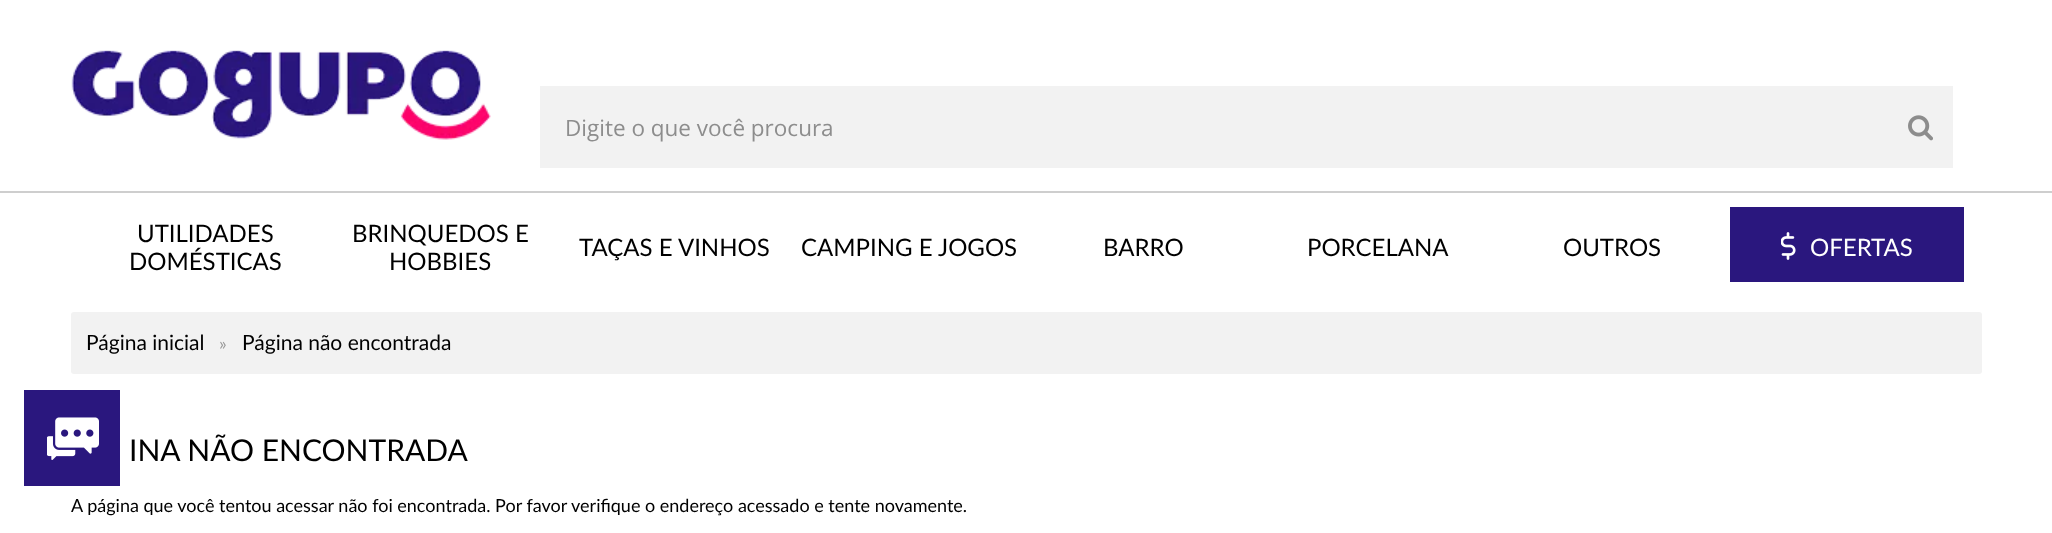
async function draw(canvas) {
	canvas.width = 2052;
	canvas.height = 533;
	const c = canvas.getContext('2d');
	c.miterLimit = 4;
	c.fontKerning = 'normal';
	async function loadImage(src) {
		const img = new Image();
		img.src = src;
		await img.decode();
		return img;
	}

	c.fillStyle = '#fff';
	c.fillRect(0, 0, 2052, 533);
	c.drawImage(await loadImage('img1.png'), 71, 50, 420, 90);
	c.fillStyle = '#f2f2f2';
	c.fillRect(540, 86, 1413, 82);
	c.font = '22.5px Open Sans';
	c.fillStyle = '#8d8d8d';
	c.fillText('Digite o que você procura', 565, 136);
	c.drawImage(await loadImage('img2.png'), 1908, 115, 25, 26);
	c.fillStyle = '#cecece';
	c.fillRect(0, 191, 2052, 2);
	c.font = '24px Lato';
	c.fillStyle = '#000';
	for (const [text, x, y] of [
		['UTILIDADES', 137, 242],
		['DOMÉSTICAS', 129, 270],
		['BRINQUEDOS E', 352, 242],
		['HOBBIES', 389, 270],
		['TAÇAS E VINHOS', 579, 256],
		['CAMPING E JOGOS', 801, 256],
		['BARRO', 1103, 256],
		['PORCELANA', 1307, 256],
		['OUTROS', 1563, 256],
	]) {
		c.fillText(text, x, y);
	}
	c.fillStyle = '#2a177e';
	c.fillRect(1730, 207, 234, 75);
	c.drawImage(await loadImage('img3.png'), 1781, 232, 15, 28);
	c.fillStyle = '#fff';
	c.fillText('OFERTAS', 1810, 256);
	c.fillStyle = '#f2f2f2';
	c.beginPath();
	c.roundRect(71, 312, 1911, 62, 3);
	c.fill();
	c.font = '21px Lato';
	c.fillStyle = '#000';
	c.fillText('Página inicial', 86, 350);
	c.font = '18px Lato';
	c.fillStyle = '#999';
	c.fillText('»', 219, 350);
	c.font = '21px Lato';
	c.fillStyle = '#000';
	c.fillText('Página não encontrada', 242, 350);
	c.font = '30px Lato';
	c.fillText('INA NÃO ENCONTRADA', 129, 461);
	c.font = '18px Lato';
	c.fillText('A página que você tentou acessar não foi encontrada. Por favor verifique o endereço acessado e tente novamente.', 71, 512);
	c.fillStyle = '#2a177e';
	c.fillRect(24, 390, 96, 96);
	c.drawImage(await loadImage('img4.png'), 47, 417, 52, 43);
}

draw(document.querySelector('canvas'));
